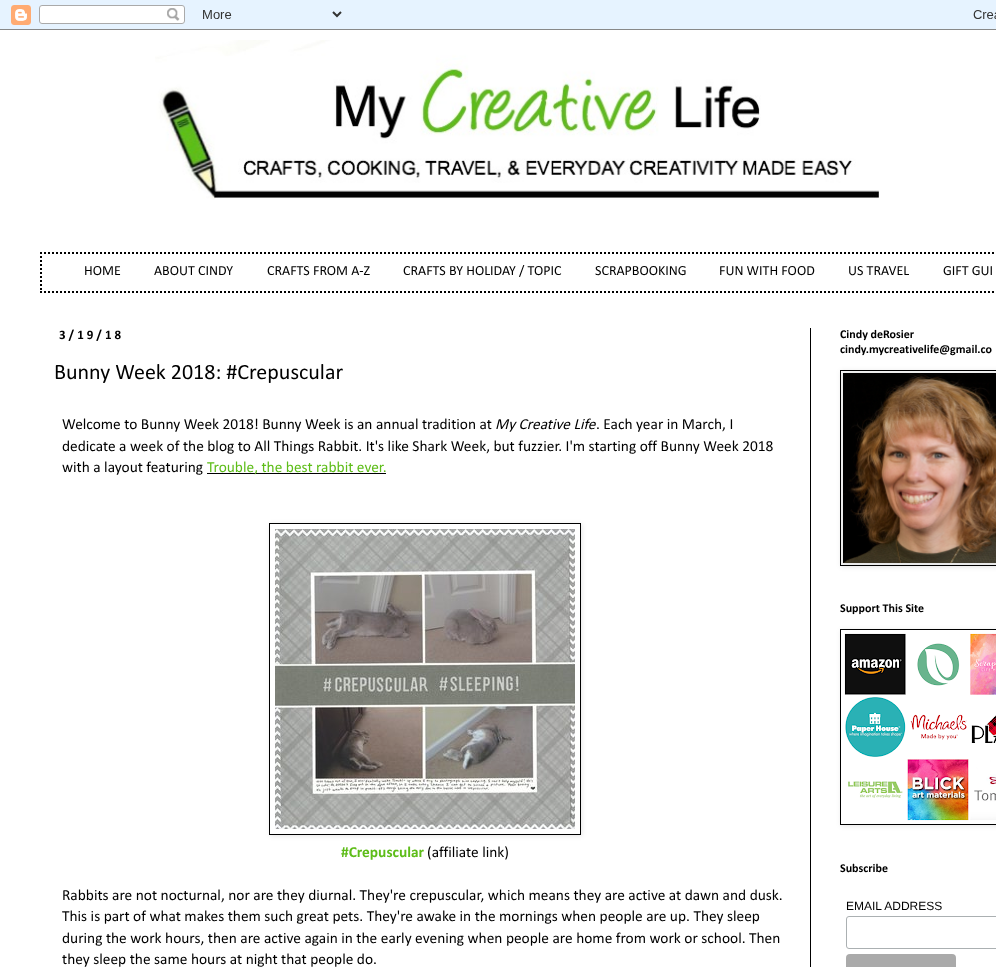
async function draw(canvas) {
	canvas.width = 996;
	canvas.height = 967;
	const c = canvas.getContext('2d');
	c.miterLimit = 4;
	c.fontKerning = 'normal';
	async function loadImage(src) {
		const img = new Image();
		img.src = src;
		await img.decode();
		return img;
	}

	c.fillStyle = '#d6ecff';
	c.fillRect(0, 0, 996, 967);
	c.drawImage(await loadImage('img1.png'), 0, 0, 996, 30);
	c.fillStyle = '#fff';
	c.fillRect(0, 30, 996, 937);
	c.drawImage(await loadImage('img2.png'), 155, 40, 724, 160);
	c.beginPath();
	c.moveTo(40, 253);
	c.lineTo(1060, 253);
	c.strokeStyle = '#000';
	c.lineWidth = 2;
	c.setLineDash([2, 2]);
	c.stroke();
	c.beginPath();
	c.moveTo(40, 292);
	c.lineTo(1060, 292);
	c.stroke();
	c.beginPath();
	c.moveTo(41, 252);
	c.lineTo(41, 293);
	c.stroke();
	c.font = '14px Calibri';
	c.fillStyle = '#000';
	for (const [text, x, y] of [
		['HOME', 84, 275],
		['ABOUT CINDY', 154, 275],
		['CRAFTS FROM A-Z', 267, 275],
		['CRAFTS BY HOLIDAY / TOPIC', 403, 275],
		['SCRAPBOOKING', 595, 275],
		['FUN WITH FOOD', 719, 275],
		['US TRAVEL', 848, 275],
		['GIFT GUI', 943, 275],
	]) {
		c.fillText(text, x, y);
	}
	c.fillRect(810, 328, 1, 639);
	c.letterSpacing = '3px';
	c.font = 'bold 13px Calibri';
	c.fillText('3/19/18', 59, 339);
	c.letterSpacing = '0px';
	c.font = '22px Calibri';
	c.fillText('Bunny Week 2018: #Crepuscular', 54, 379);
	c.font = '15.4px Calibri';
	c.fillText('Welcome to Bunny Week 2018! Bunny Week is an annual tradition at', 62, 429);
	c.font = 'italic 15.4px Calibri';
	c.fillText('My Creative Life', 495, 429);
	c.font = '15.4px Calibri';
	for (const [text, x, y] of [
		['. Each year in March, I', 596, 429],
		['dedicate a week of the blog to All Things Rabbit. It\'s like Shark Week, but fuzzier. I\'m starting off Bunny Week 2018', 62, 451],
		['with a layout featuring', 62, 472],
	]) {
		c.fillText(text, x, y);
	}
	c.fillRect(207, 473, 179, 1);
	c.fillStyle = '#5ebd19';
	c.fillText('Trouble, the best rabbit ever.', 207, 472);
	c.save();
	c.beginPath();
	c.moveTo(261, 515);
	c.lineTo(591, 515);
	c.lineTo(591, 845);
	c.lineTo(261, 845);
	c.closePath();
	c.moveTo(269, 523);
	c.lineTo(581, 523);
	c.lineTo(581, 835);
	c.lineTo(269, 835);
	c.closePath();
	c.clip('evenodd');
	c.fillStyle = '#0000001a';
	c.filter = 'blur(2.5px)';
	c.beginPath();
	c.rect(270, 524, 312, 312);
	c.fill();
	c.filter = 'none';
	c.restore();
	c.lineWidth = 1;
	c.setLineDash([]);
	c.strokeRect(269.5, 523.5, 311, 311);
	c.drawImage(await loadImage('img3.png'), 275, 529, 300, 300);
	c.font = 'bold 15.4px Calibri';
	c.fillText('#Crepuscular', 341, 857);
	c.font = '15.4px Calibri';
	c.fillStyle = '#000';
	for (const [text, x, y] of [
		['(affiliate link)', 427, 857],
		['Rabbits are not nocturnal, nor are they diurnal. They\'re crepuscular, which means they are active at dawn and dusk.', 62, 900],
		['This is part of what makes them such great pets. They\'re awake in the mornings when people are up. They sleep', 62, 921],
		['during the work hours, then are active again in the early evening when people are home from work or school. Then', 62, 943],
		['they sleep the same hours at night that people do.', 62, 964],
	]) {
		c.fillText(text, x, y);
	}
	c.font = 'bold 12px Calibri';
	c.fillText('Cindy deRosier', 840, 338);
	c.fillText('cindy.mycreativelife@gmail.co', 840, 353);
	c.fillStyle = '#0000001a';
	c.filter = 'blur(2.5px)';
	c.beginPath();
	c.rect(841, 371, 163, 196);
	c.fill();
	c.filter = 'none';
	c.strokeRect(840.5, 370.5, 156, 195);
	c.drawImage(await loadImage('img4.png'), 843, 373, 153, 190);
	c.fillStyle = '#000';
	c.fillText('Support This Site', 840, 612);
	c.save();
	c.beginPath();
	c.moveTo(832, 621);
	c.lineTo(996, 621);
	c.lineTo(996, 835);
	c.lineTo(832, 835);
	c.closePath();
	c.moveTo(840, 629);
	c.lineTo(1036, 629);
	c.lineTo(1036, 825);
	c.lineTo(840, 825);
	c.closePath();
	c.clip('evenodd');
	c.fillStyle = '#0000001a';
	c.filter = 'blur(2.5px)';
	c.beginPath();
	c.rect(841, 630, 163, 196);
	c.fill();
	c.filter = 'none';
	c.restore();
	c.strokeRect(840.5, 629.5, 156, 195);
	c.drawImage(await loadImage('img5.png'), 844, 633, 152, 188);
	c.fillText('Subscribe', 840, 872);
	c.font = '12px Liberation Sans';
	c.fillText('EMAIL ADDRESS', 846, 910);
	c.beginPath();
	c.roundRect(846.5, 916.5, 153, 32, 2.5);
	c.strokeStyle = '#abb0b2';
	c.stroke();
	c.fillStyle = '#aaa';
	c.beginPath();
	c.roundRect(846, 954, 110, 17, 4);
	c.fill();
}

draw(document.querySelector('canvas'));
